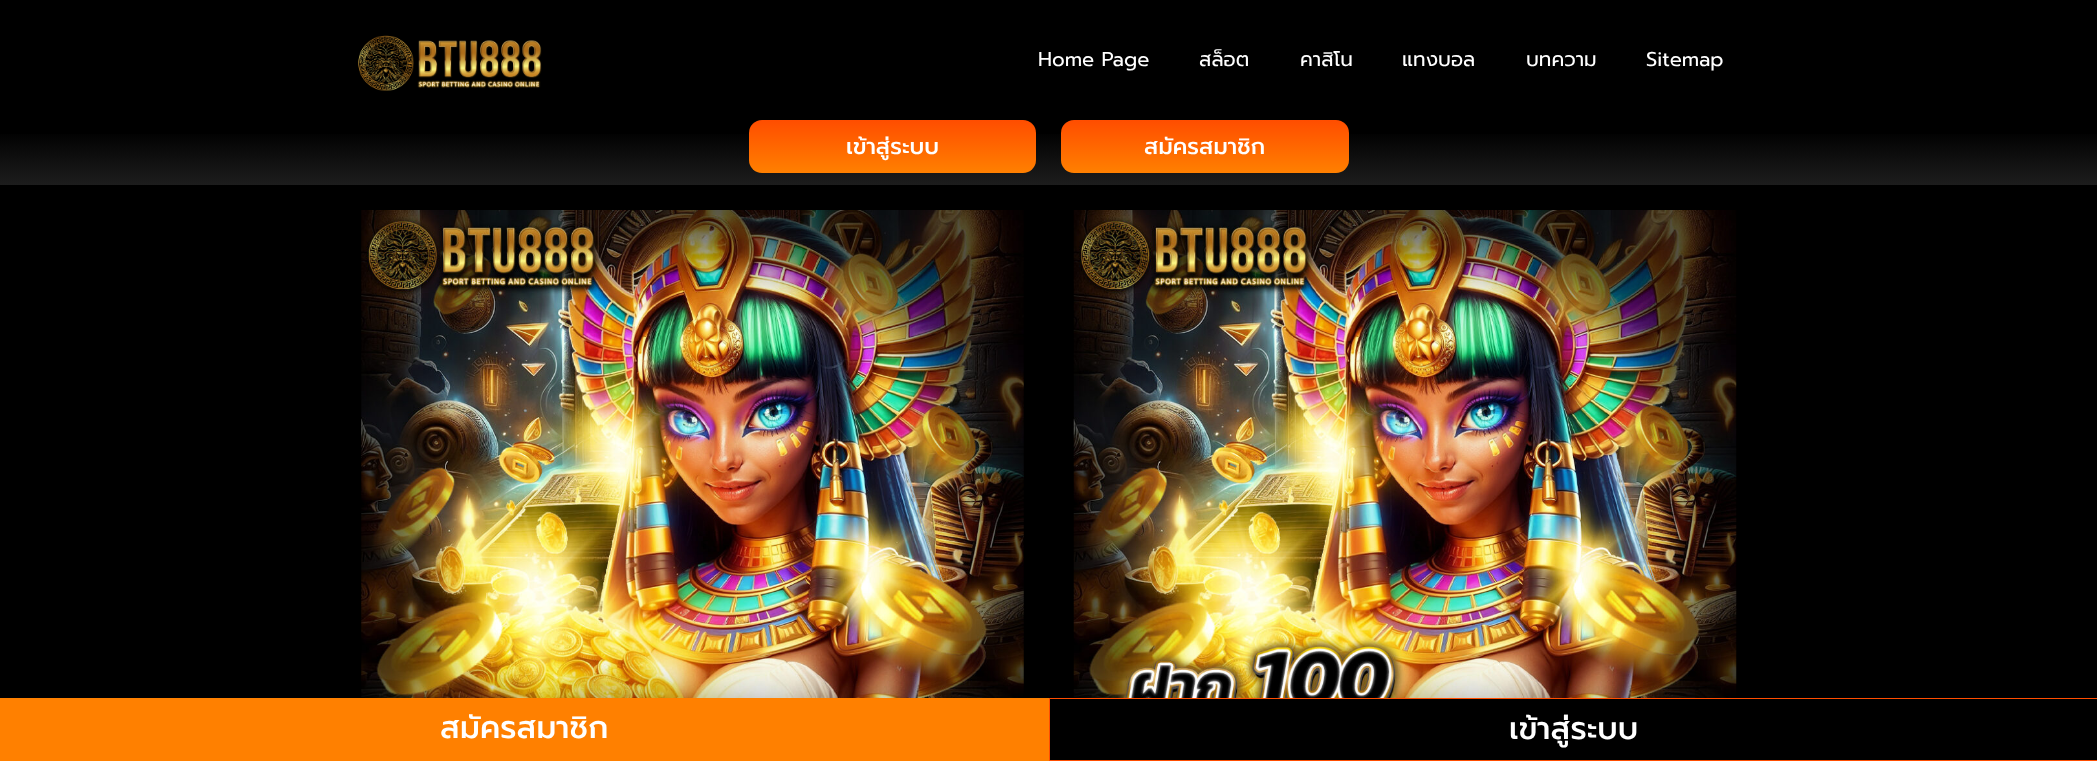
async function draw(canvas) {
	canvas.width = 2097;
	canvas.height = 761;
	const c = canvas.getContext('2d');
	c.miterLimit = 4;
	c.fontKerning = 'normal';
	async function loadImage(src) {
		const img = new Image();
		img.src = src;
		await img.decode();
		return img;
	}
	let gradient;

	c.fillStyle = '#000';
	c.fillRect(0, 0, 2097, 761);
	gradient = c.createLinearGradient(1049, 0, 1049, 185);
	gradient.addColorStop(0.7, '#000');
	gradient.addColorStop(1, '#1d1d1d');
	c.fillStyle = gradient;
	c.fillRect(0, 134, 2097, 51);
	c.drawImage(await loadImage('img1.png'), 358, 35, 184, 56);
	c.font = '20px Prompt';
	c.fillStyle = '#fff';
	for (const [text, x, y] of [
		['Home Page', 1038, 66],
		['สล็อต', 1199, 66],
		['คาสิโน', 1300, 66],
		['แทงบอล', 1402, 66],
		['บทความ', 1526, 66],
		['Sitemap', 1646, 66],
	]) {
		c.fillText(text, x, y);
	}
	gradient = c.createLinearGradient(893, 120, 893, 173);
	gradient.addColorStop(0, '#ff4d00');
	gradient.addColorStop(1, '#ff8000');
	c.fillStyle = gradient;
	c.beginPath();
	c.roundRect(749, 120, 287, 53, 13);
	c.fill();
	c.font = '500 22.5px Prompt';
	c.fillStyle = '#fff';
	c.fillText('เข้าสู่ระบบ', 846, 154);
	gradient = c.createLinearGradient(1205, 120, 1205, 173);
	gradient.addColorStop(0, '#ff4d00');
	gradient.addColorStop(1, '#ff8000');
	c.fillStyle = gradient;
	c.beginPath();
	c.roundRect(1061, 120, 288, 53, 13);
	c.fill();
	c.fillStyle = '#fff';
	c.fillText('สมัครสมาชิก', 1144, 154);
	c.drawImage(await loadImage('img2.png'), 361, 210, 663, 488);
	c.drawImage(await loadImage('img3.png'), 1073, 210, 664, 488);
	c.fillStyle = '#ff8000';
	c.fillRect(0, 698, 1049, 63);
	c.font = '500 31.25px Prompt';
	c.fillStyle = '#fff';
	c.fillText('สมัครสมาชิก', 440, 738);
	c.strokeStyle = '#ff4d00';
	c.strokeRect(1049.5, 698.5, 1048, 62);
	c.fillText('เข้าสู่ระบบ', 1509, 739);
}

draw(document.querySelector('canvas'));
